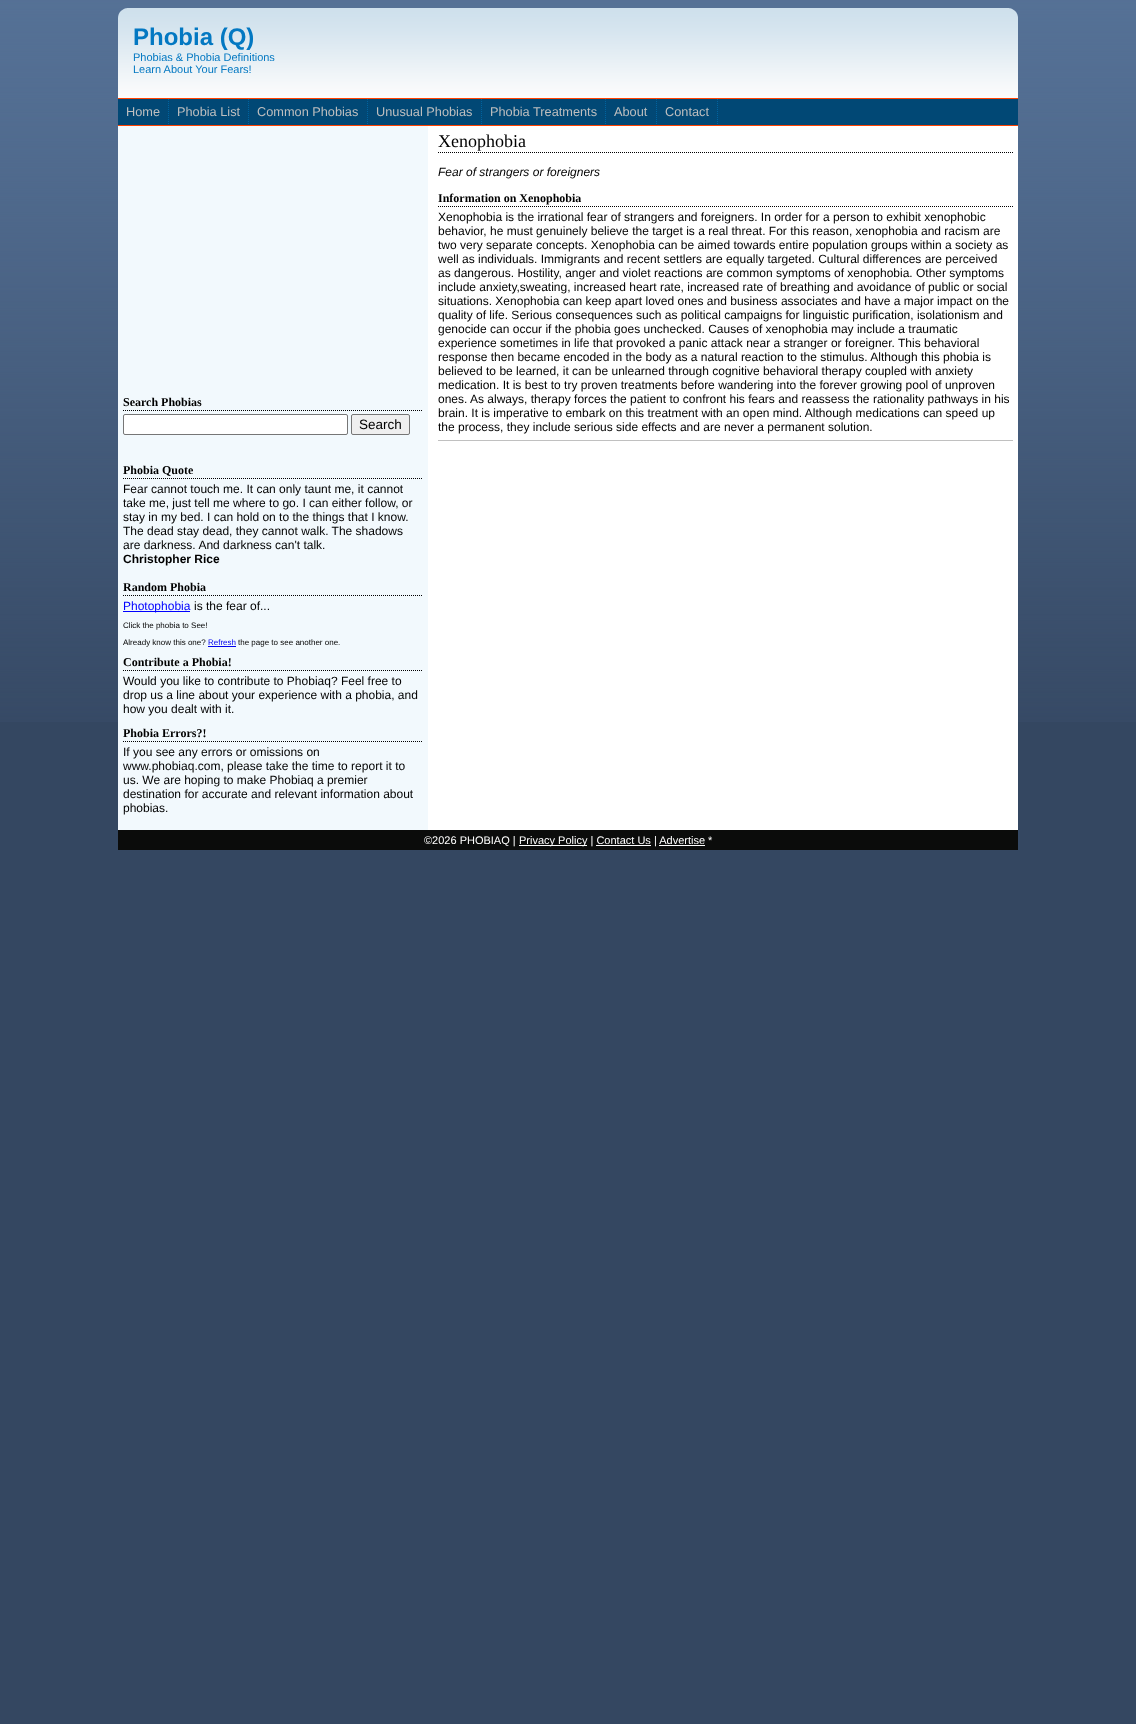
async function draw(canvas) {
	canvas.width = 1136;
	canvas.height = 1724;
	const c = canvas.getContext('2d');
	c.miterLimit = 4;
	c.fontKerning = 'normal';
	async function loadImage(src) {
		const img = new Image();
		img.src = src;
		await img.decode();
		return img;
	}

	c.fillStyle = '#344761';
	c.fillRect(0, 0, 1136, 1724);
	c.drawImage(await loadImage('img1.png'), 0, 0, 1136, 722);
	c.drawImage(await loadImage('img2.png'), 118, 8, 900, 90);
	c.font = 'bold 24px Liberation Sans';
	c.fillStyle = '#0378c2';
	c.fillText('Phobia (Q)', 133, 45);
	c.font = '11px Liberation Sans';
	c.fillText('Phobias & Phobia Definitions', 133, 61);
	c.fillText('Learn About Your Fears!', 133, 73);
	for (const [x, y, w, h, color] of [
		[118, 99, 900, 26, '#014875'],
		[118, 98, 900, 1, '#ff4200'],
		[118, 125, 900, 1, '#ff4200'],
	]) {
		c.fillStyle = color;
		c.fillRect(x, y, w, h);
	}
	c.beginPath();
	c.moveTo(168.5, 99);
	c.lineTo(168.5, 125);
	c.strokeStyle = '#00639f';
	c.setLineDash([1, 1]);
	c.stroke();
	c.font = '12.75px Liberation Sans';
	c.fillStyle = '#bfbfbf';
	c.fillText('Home', 126, 116);
	c.beginPath();
	c.moveTo(248.5, 99);
	c.lineTo(248.5, 125);
	c.stroke();
	c.fillText('Phobia List', 177, 116);
	c.beginPath();
	c.moveTo(367.5, 99);
	c.lineTo(367.5, 125);
	c.stroke();
	c.fillText('Common Phobias', 257, 116);
	c.beginPath();
	c.moveTo(481.5, 99);
	c.lineTo(481.5, 125);
	c.stroke();
	c.fillText('Unusual Phobias', 376, 116);
	c.beginPath();
	c.moveTo(605.5, 99);
	c.lineTo(605.5, 125);
	c.stroke();
	c.fillText('Phobia Treatments', 490, 116);
	c.beginPath();
	c.moveTo(656.5, 99);
	c.lineTo(656.5, 125);
	c.stroke();
	c.fillText('About', 614, 116);
	c.beginPath();
	c.moveTo(717.5, 99);
	c.lineTo(717.5, 125);
	c.stroke();
	c.fillText('Contact', 665, 116);
	c.drawImage(await loadImage('img3.png'), 118, 126, 900, 704);
	c.beginPath();
	c.moveTo(438, 152.5);
	c.lineTo(1013, 152.5);
	c.strokeStyle = '#000';
	c.stroke();
	c.font = '18px Liberation Serif';
	c.fillStyle = '#000';
	c.fillText('Xenophobia', 438, 147);
	c.font = 'italic 12px Liberation Sans';
	c.fillText('Fear of strangers or foreigners', 438, 176);
	c.beginPath();
	c.moveTo(438, 206.5);
	c.lineTo(1013, 206.5);
	c.stroke();
	c.font = 'bold 12px Liberation Serif';
	c.fillText('Information on Xenophobia', 438, 202);
	c.font = '12px Liberation Sans';
	for (const [text, x, y] of [
		['Xenophobia is the irrational fear of strangers and foreigners. In order for a person to exhibit xenophobic', 438, 221],
		['behavior, he must genuinely believe the target is a real threat. For this reason, xenophobia and racism are', 438, 235],
		['two very separate concepts. Xenophobia can be aimed towards entire population groups within a society as', 438, 249],
		['well as individuals. Immigrants and recent settlers are equally targeted. Cultural differences are perceived', 438, 263],
		['as dangerous. Hostility, anger and violet reactions are common symptoms of xenophobia. Other symptoms', 438, 277],
		['include anxiety,sweating, increased heart rate, increased rate of breathing and avoidance of public or social', 438, 291],
		['situations. Xenophobia can keep apart loved ones and business associates and have a major impact on the', 438, 305],
		['quality of life. Serious consequences such as political campaigns for linguistic purification, isolationism and', 438, 319],
		['genocide can occur if the phobia goes unchecked. Causes of xenophobia may include a traumatic', 438, 333],
		['experience sometimes in life that provoked a panic attack near a stranger or foreigner. This behavioral', 438, 347],
		['response then became encoded in the body as a natural reaction to the stimulus. Although this phobia is', 438, 361],
		['believed to be learned, it can be unlearned through cognitive behavioral therapy coupled with anxiety', 438, 375],
		['medication. It is best to try proven treatments before wandering into the forever growing pool of unproven', 438, 389],
		['ones.', 438, 403],
		['As always, therapy forces the patient to confront his fears and reassess the rationality pathways in his', 470, 403],
		['brain. It is imperative to embark on this treatment with an open mind. Although medications can speed up', 438, 417],
		['the process, they include serious side effects and are never a permanent solution.', 438, 431],
	]) {
		c.fillText(text, x, y);
	}
	c.fillStyle = '#c0c0c0';
	c.fillRect(438, 440, 575, 1);
	c.beginPath();
	c.moveTo(123, 410.5);
	c.lineTo(423, 410.5);
	c.stroke();
	c.font = 'bold 12px Liberation Serif';
	c.fillStyle = '#000';
	c.fillText('Search Phobias', 123, 406);
	c.fillStyle = '#fff';
	c.beginPath();
	c.roundRect(123.5, 414.5, 224, 20, 1.5);
	c.fill();
	c.strokeStyle = '#767676';
	c.setLineDash([]);
	c.stroke();
	c.fillStyle = '#efefef';
	c.beginPath();
	c.roundRect(351.5, 414.5, 58, 20, 1.5);
	c.fill();
	c.stroke();
	c.font = '13.5px Liberation Sans';
	c.fillStyle = '#000';
	c.fillText('Search', 359, 429);
	c.beginPath();
	c.moveTo(123, 478.5);
	c.lineTo(423, 478.5);
	c.strokeStyle = '#000';
	c.setLineDash([1, 1]);
	c.stroke();
	c.font = 'bold 12px Liberation Serif';
	c.fillText('Phobia Quote', 123, 474);
	c.font = '12px Liberation Sans';
	for (const [text, x, y] of [
		['Fear cannot touch me. It can only taunt me, it cannot', 123, 493],
		['take me, just tell me where to go. I can either follow, or', 123, 507],
		['stay in my bed. I can hold on to the things that I know.', 123, 521],
		['The dead stay dead, they cannot walk. The shadows', 123, 535],
		['are darkness. And darkness can\'t talk.', 123, 549],
	]) {
		c.fillText(text, x, y);
	}
	c.font = 'bold 12px Liberation Sans';
	c.fillText('Christopher Rice', 123, 563);
	c.beginPath();
	c.moveTo(123, 595.5);
	c.lineTo(423, 595.5);
	c.stroke();
	c.font = 'bold 12px Liberation Serif';
	c.fillText('Random Phobia', 123, 591);
	c.fillStyle = '#00f';
	c.fillRect(123, 611, 67, 1);
	c.font = '12px Liberation Sans';
	c.fillText('Photophobia', 123, 610);
	c.fillStyle = '#000';
	c.fillText('is the fear of...', 194, 610);
	c.font = '8px Liberation Sans';
	c.fillText('Click the phobia to See!', 123, 628);
	c.fillText('Already know this one?', 123, 645);
	c.fillStyle = '#00e';
	c.fillText('Refresh', 208, 645);
	c.fillRect(208, 646, 28, 1);
	c.fillStyle = '#000';
	c.fillText('the page to see another one.', 238, 645);
	c.beginPath();
	c.moveTo(123, 670.5);
	c.lineTo(423, 670.5);
	c.stroke();
	c.font = 'bold 12px Liberation Serif';
	c.fillText('Contribute a Phobia!', 123, 666);
	c.font = '12px Liberation Sans';
	for (const [text, x, y] of [
		['Would you like to contribute to Phobiaq? Feel free to', 123, 685],
		['drop us a line about your experience with a phobia, and', 123, 699],
		['how you dealt with it.', 123, 713],
	]) {
		c.fillText(text, x, y);
	}
	c.beginPath();
	c.moveTo(123, 741.5);
	c.lineTo(423, 741.5);
	c.stroke();
	c.font = 'bold 12px Liberation Serif';
	c.fillText('Phobia Errors?!', 123, 737);
	c.font = '12px Liberation Sans';
	for (const [text, x, y] of [
		['If you see any errors or omissions on', 123, 756],
		['www.phobiaq.com, please take the time to report it to', 123, 770],
		['us. We are hoping to make Phobiaq a premier', 123, 784],
		['destination for accurate and relevant information about', 123, 798],
		['phobias.', 123, 812],
	]) {
		c.fillText(text, x, y);
	}
	c.fillStyle = '#0b0c0b';
	c.fillRect(118, 830, 900, 20);
	c.font = '11px Liberation Sans';
	c.fillStyle = '#fff';
	c.fillText('©2026 PHOBIAQ |', 424, 844);
	c.fillRect(519, 845, 68, 1);
	c.fillText('Privacy Policy | Contact Us | Advertise *', 519, 844);
	c.fillRect(596, 845, 55, 1);
	c.fillRect(659, 845, 46, 1);
}

draw(document.querySelector('canvas'));
